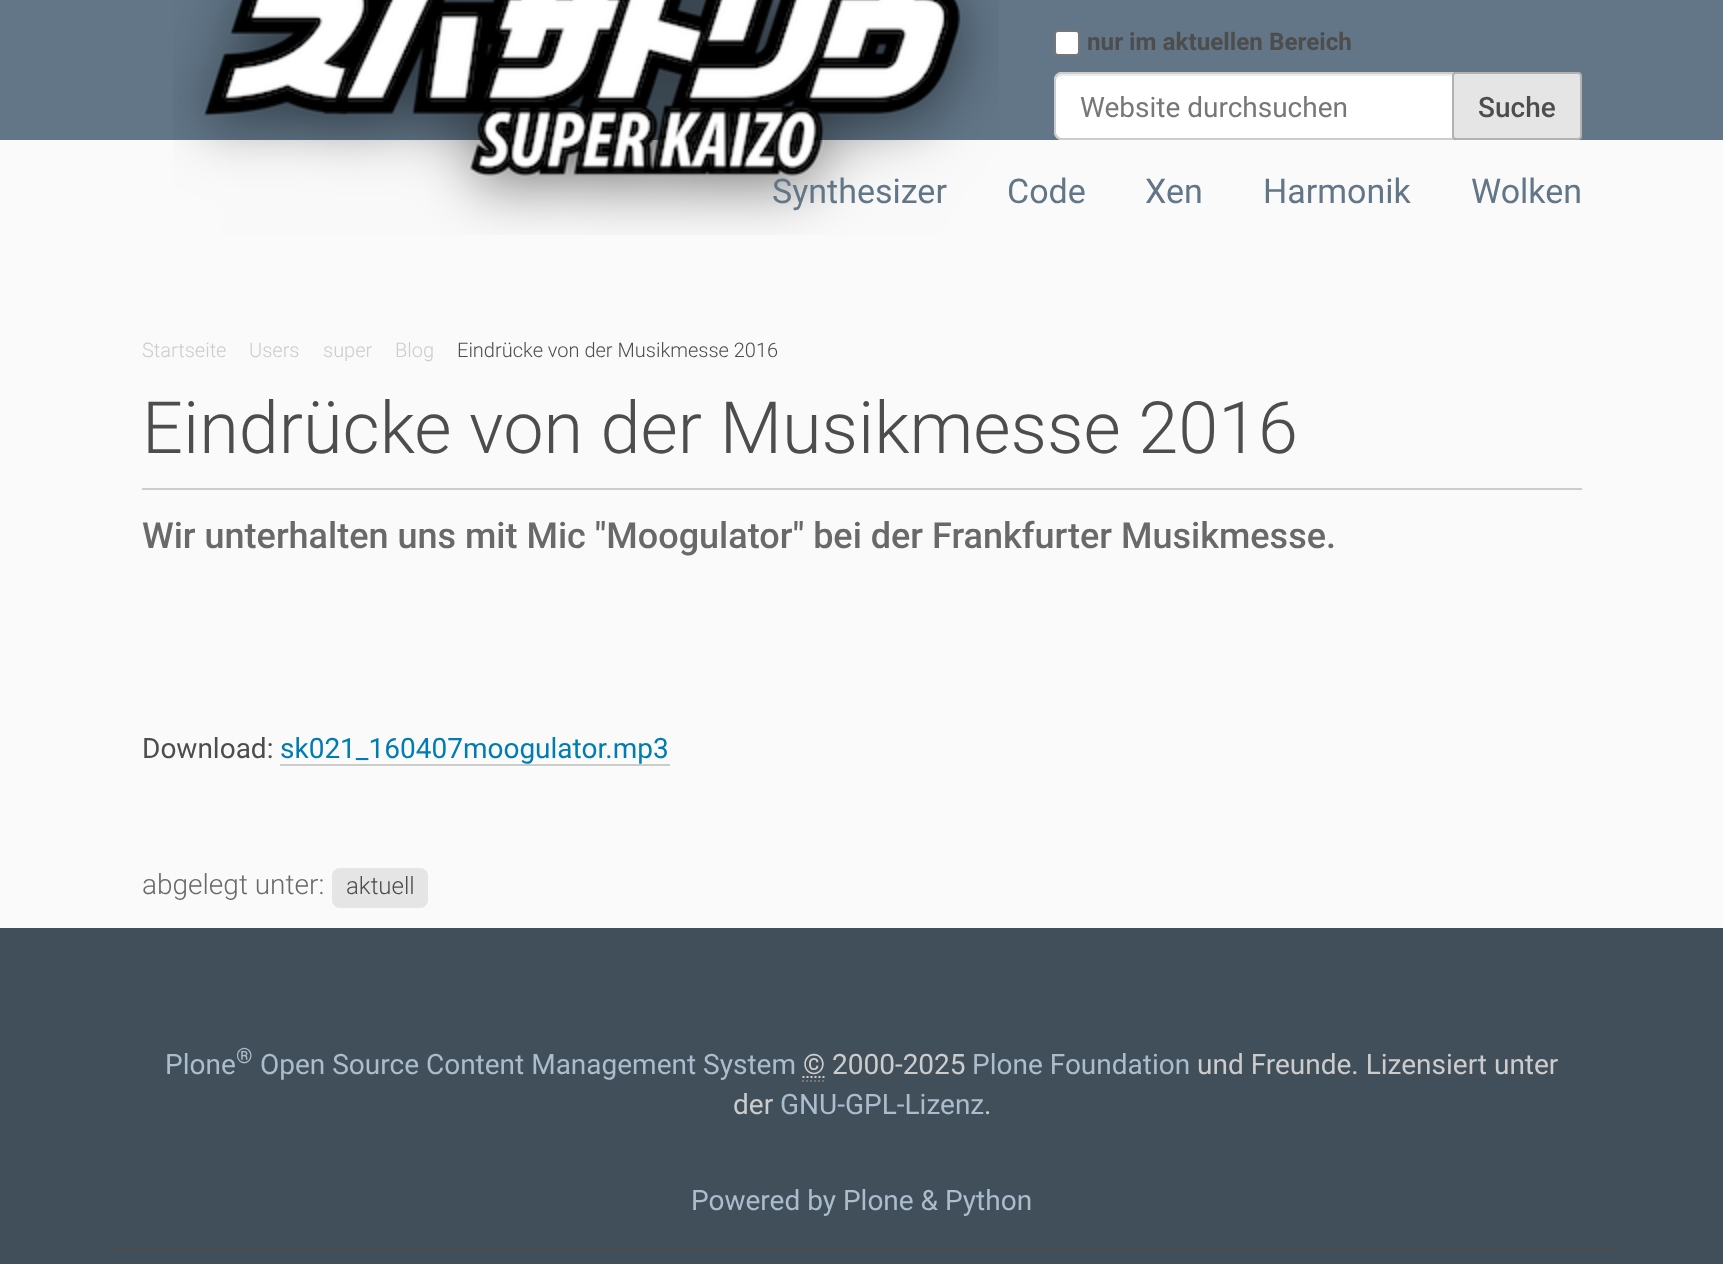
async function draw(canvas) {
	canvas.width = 1723;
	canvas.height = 1264;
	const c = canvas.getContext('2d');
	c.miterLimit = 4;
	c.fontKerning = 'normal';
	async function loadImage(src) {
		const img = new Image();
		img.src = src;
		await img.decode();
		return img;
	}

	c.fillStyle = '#fafafa';
	c.fillRect(0, 0, 1723, 1264);
	c.fillStyle = '#627688';
	c.fillRect(0, 0, 1723, 140);
	c.drawImage(await loadImage('img1.png'), 173, 0, 826, 235);
	c.fillStyle = '#fff';
	c.beginPath();
	c.roundRect(1055, 31, 24, 24, 3);
	c.fill();
	c.strokeStyle = '#767676';
	c.lineWidth = 2;
	c.stroke();
	c.font = 'bold 24.25px Roboto';
	c.fillStyle = '#4d4d4d';
	c.fillText('nur im aktuellen Bereich', 1087, 50);
	c.fillStyle = '#fff';
	c.beginPath();
	c.roundRect(1054, 72, 400, 68, [8, 0, 0, 8]);
	c.fill();
	c.fillStyle = '#ececec';
	c.beginPath();
	c.moveTo(1062, 76);
	c.lineTo(1452, 76);
	c.lineTo(1452, 74);
	c.lineTo(1062, 74);
	c.bezierCurveTo(1057, 74, 1056, 78, 1056, 82);
	c.bezierCurveTo(1056, 79, 1059, 76, 1062, 76);
	c.closePath();
	c.fill();
	c.beginPath();
	c.roundRect(1055, 73, 398, 66, [7, 0, 0, 7]);
	c.strokeStyle = '#ccc';
	c.stroke();
	c.font = '28px Roboto';
	c.fillStyle = '#777';
	c.fillText('Website durchsuchen', 1080, 117);
	c.fillStyle = '#e5e5e5';
	c.beginPath();
	c.roundRect(1453, 73, 128, 66, 3);
	c.fill();
	c.strokeStyle = '#b2b2b2';
	c.stroke();
	c.font = '500 28px Roboto';
	c.fillStyle = '#4d4d4d';
	c.fillText('Suche', 1478, 117);
	c.font = '34px Roboto';
	c.fillStyle = '#627688';
	for (const [text, x, y] of [
		['Synthesizer', 772, 203],
		['Code', 1007, 203],
		['Xen', 1145, 203],
		['Harmonik', 1263, 203],
		['Wolken', 1471, 203],
	]) {
		c.fillText(text, x, y);
	}
	c.font = '300 20px Roboto';
	c.fillStyle = '#ccc';
	for (const [text, x, y] of [
		['Startseite', 142, 357],
		['Users', 249, 357],
		['super', 323, 357],
		['Blog', 395, 357],
	]) {
		c.fillText(text, x, y);
	}
	c.fillStyle = '#4d4d4d';
	c.fillText('Eindrücke von der Musikmesse 2016', 457, 357);
	c.fillStyle = '#ccc';
	c.fillRect(142, 488, 1440, 2);
	c.font = '300 72px Roboto';
	c.fillStyle = '#4d4d4d';
	c.fillText('Eindrücke von der Musikmesse 2016', 142, 453);
	c.font = '500 36px Roboto';
	c.fillStyle = '#696969';
	c.fillText('Wir unterhalten uns mit Mic "Moogulator" bei der Frankfurter Musikmesse.', 142, 548);
	c.font = '28px Roboto';
	c.fillStyle = '#4d4d4d';
	c.fillText('Download:', 142, 758);
	c.fillStyle = '#007bb3';
	c.fillText('sk021_160407moogulator.mp3', 280, 758);
	c.fillStyle = '#ccc';
	c.fillRect(280, 764, 390, 2);
	c.font = '300 28px Roboto';
	c.fillStyle = '#696969';
	c.fillText('abgelegt unter:', 142, 894);
	c.fillStyle = '#e5e5e5';
	c.beginPath();
	c.roundRect(332, 868, 96, 40, 8);
	c.fill();
	c.font = '300 24px Roboto';
	c.fillStyle = '#4d4d4d';
	c.fillText('aktuell', 346, 894);
	c.fillStyle = '#414f5b';
	c.fillRect(0, 928, 1723, 336);
	c.font = '28px Roboto';
	c.fillStyle = '#abbccc';
	c.fillText('Plone', 165, 1074);
	c.font = '21px Roboto';
	c.fillText('®', 236, 1063);
	c.font = '28px Roboto';
	c.fillText('Open Source Content Management System', 260, 1074);
	c.fillStyle = '#ccc';
	c.fillText('© 2000-2025', 803, 1074);
	c.beginPath();
	c.moveTo(802, 1081);
	c.lineTo(824, 1081);
	c.strokeStyle = '#777';
	c.setLineDash([2, 2]);
	c.stroke();
	c.beginPath();
	c.moveTo(802.5, 1077);
	c.lineTo(824.5, 1077);
	c.strokeStyle = '#ccc';
	c.stroke();
	c.fillStyle = '#abbccc';
	c.fillText('Plone Foundation', 972, 1074);
	c.fillStyle = '#ccc';
	c.fillText('und Freunde. Lizensiert unter', 1197, 1074);
	c.fillText('der', 733, 1114);
	c.fillStyle = '#abbccc';
	c.fillText('GNU-GPL-Lizenz', 780, 1114);
	c.fillStyle = '#ccc';
	c.fillText('.', 984, 1114);
	c.fillStyle = '#abbccc';
	c.fillText('Powered by Plone & Python', 691, 1210);
	c.fillStyle = '#4d4d4d';
	c.fillRect(112, 1248, 1500, 2);
}

draw(document.querySelector('canvas'));
